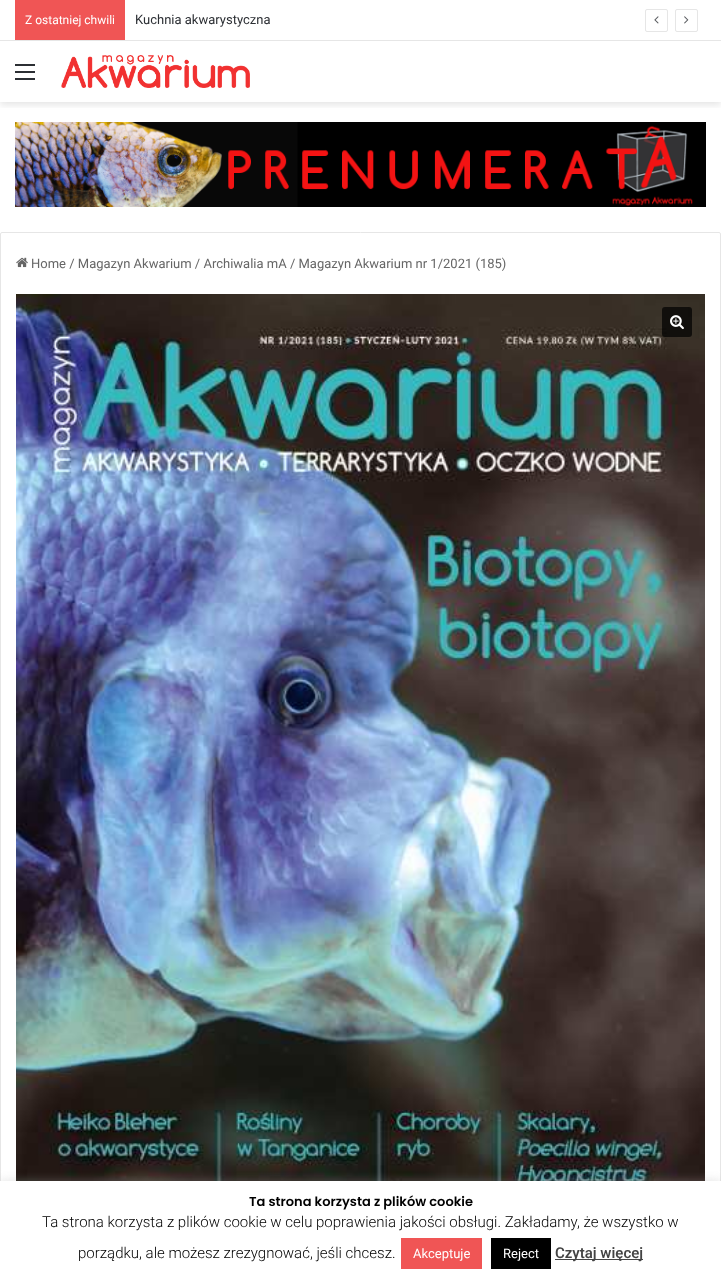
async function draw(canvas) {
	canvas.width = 721;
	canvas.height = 1281;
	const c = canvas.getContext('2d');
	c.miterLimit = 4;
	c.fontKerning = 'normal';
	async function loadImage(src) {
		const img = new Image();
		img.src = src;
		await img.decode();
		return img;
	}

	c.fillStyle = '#fff';
	c.fillRect(0, 0, 721, 1281);
	c.save();
	c.beginPath();
	c.rect(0, 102, 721, 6);
	c.clip();
	c.fillStyle = '#0000001a';
	c.filter = 'blur(3.5px)';
	c.beginPath();
	c.rect(0, 44, 721, 61);
	c.fill();
	c.filter = 'none';
	c.restore();
	c.fillStyle = '#e6e6e6';
	c.fillRect(0, 40, 721, 1);
	c.fillStyle = '#f05555';
	c.fillRect(15, 0, 110, 40);
	c.font = '12px Roboto';
	c.fillStyle = '#fff';
	c.fillText('Z ostatniej chwili', 25, 24);
	c.font = '13px Roboto';
	c.fillStyle = '#2c2f34';
	c.fillText('Kuchnia akwarystyczna', 135, 24);
	c.beginPath();
	c.roundRect(645.5, 9.5, 22, 22, 1.5);
	c.strokeStyle = '#e6e6e6';
	c.stroke();
	c.drawImage(await loadImage('img1.png'), 654, 16, 5, 8);
	c.beginPath();
	c.roundRect(675.5, 9.5, 22, 22, 1.5);
	c.stroke();
	c.drawImage(await loadImage('img2.png'), 684, 16, 5, 8);
	for (const [x, y, w, h, color] of [
		[15, 71, 20, 2, '#2c2f34'],
		[15, 64, 20, 2, '#2c2f34'],
		[15, 78, 20, 2, '#2c2f34'],
	]) {
		c.fillStyle = color;
		c.fillRect(x, y, w, h);
	}
	c.drawImage(await loadImage('img3.png'), 61, 55, 189, 33);
	c.drawImage(await loadImage('img4.png'), 15, 122, 691, 85);
	c.beginPath();
	c.roundRect(0.5, 232.5, 720, 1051, 1.5);
	c.stroke();
	c.drawImage(await loadImage('img5.png'), 16, 257, 12, 11);
	c.fillStyle = '#666';
	c.fillText('Home / Magazyn Akwarium / Archiwalia mA / Magazyn Akwarium nr 1/2021 (185)', 31, 268);
	c.drawImage(await loadImage('img6.png'), 16, 294, 689, 887);
	c.fillStyle = '#000000b3';
	c.beginPath();
	c.roundRect(662, 307, 30, 30, 3);
	c.fill();
	c.drawImage(await loadImage('img7.png'), 670, 315, 14, 15);
	c.fillStyle = '#acabab4d';
	c.filter = 'blur(5px)';
	c.beginPath();
	c.rect(0, 1180, 721, 100);
	c.fill();
	c.filter = 'none';
	c.fillStyle = '#fff';
	c.fillRect(0, 1181, 721, 100);
	c.font = '600 13px Poppins';
	c.fillStyle = '#000';
	c.fillText('Ta strona korzysta z plików cookie', 249, 1206);
	c.font = '300 15px Roboto';
	c.fillText('Ta strona korzysta z plików cookie w celu poprawienia jakości obsługi. Zakładamy, że wszystko w', 42, 1227);
	c.fillText('porządku, ale możesz zrezygnować, jeśli chcesz.', 78, 1258);
	c.fillStyle = '#f05555';
	c.fillRect(401, 1238, 81, 31);
	c.font = '13px Roboto';
	c.fillStyle = '#fff';
	c.fillText('Akceptuje', 413, 1258);
	c.fillStyle = '#000';
	c.fillRect(491, 1238, 60, 31);
	c.fillStyle = '#fff';
	c.fillText('Reject', 503, 1258);
	c.fillStyle = '#444';
	c.fillRect(555, 1259, 88, 1);
	c.font = '500 15px Roboto';
	c.fillText('Czytaj więcej', 555, 1258);
}

draw(document.querySelector('canvas'));
